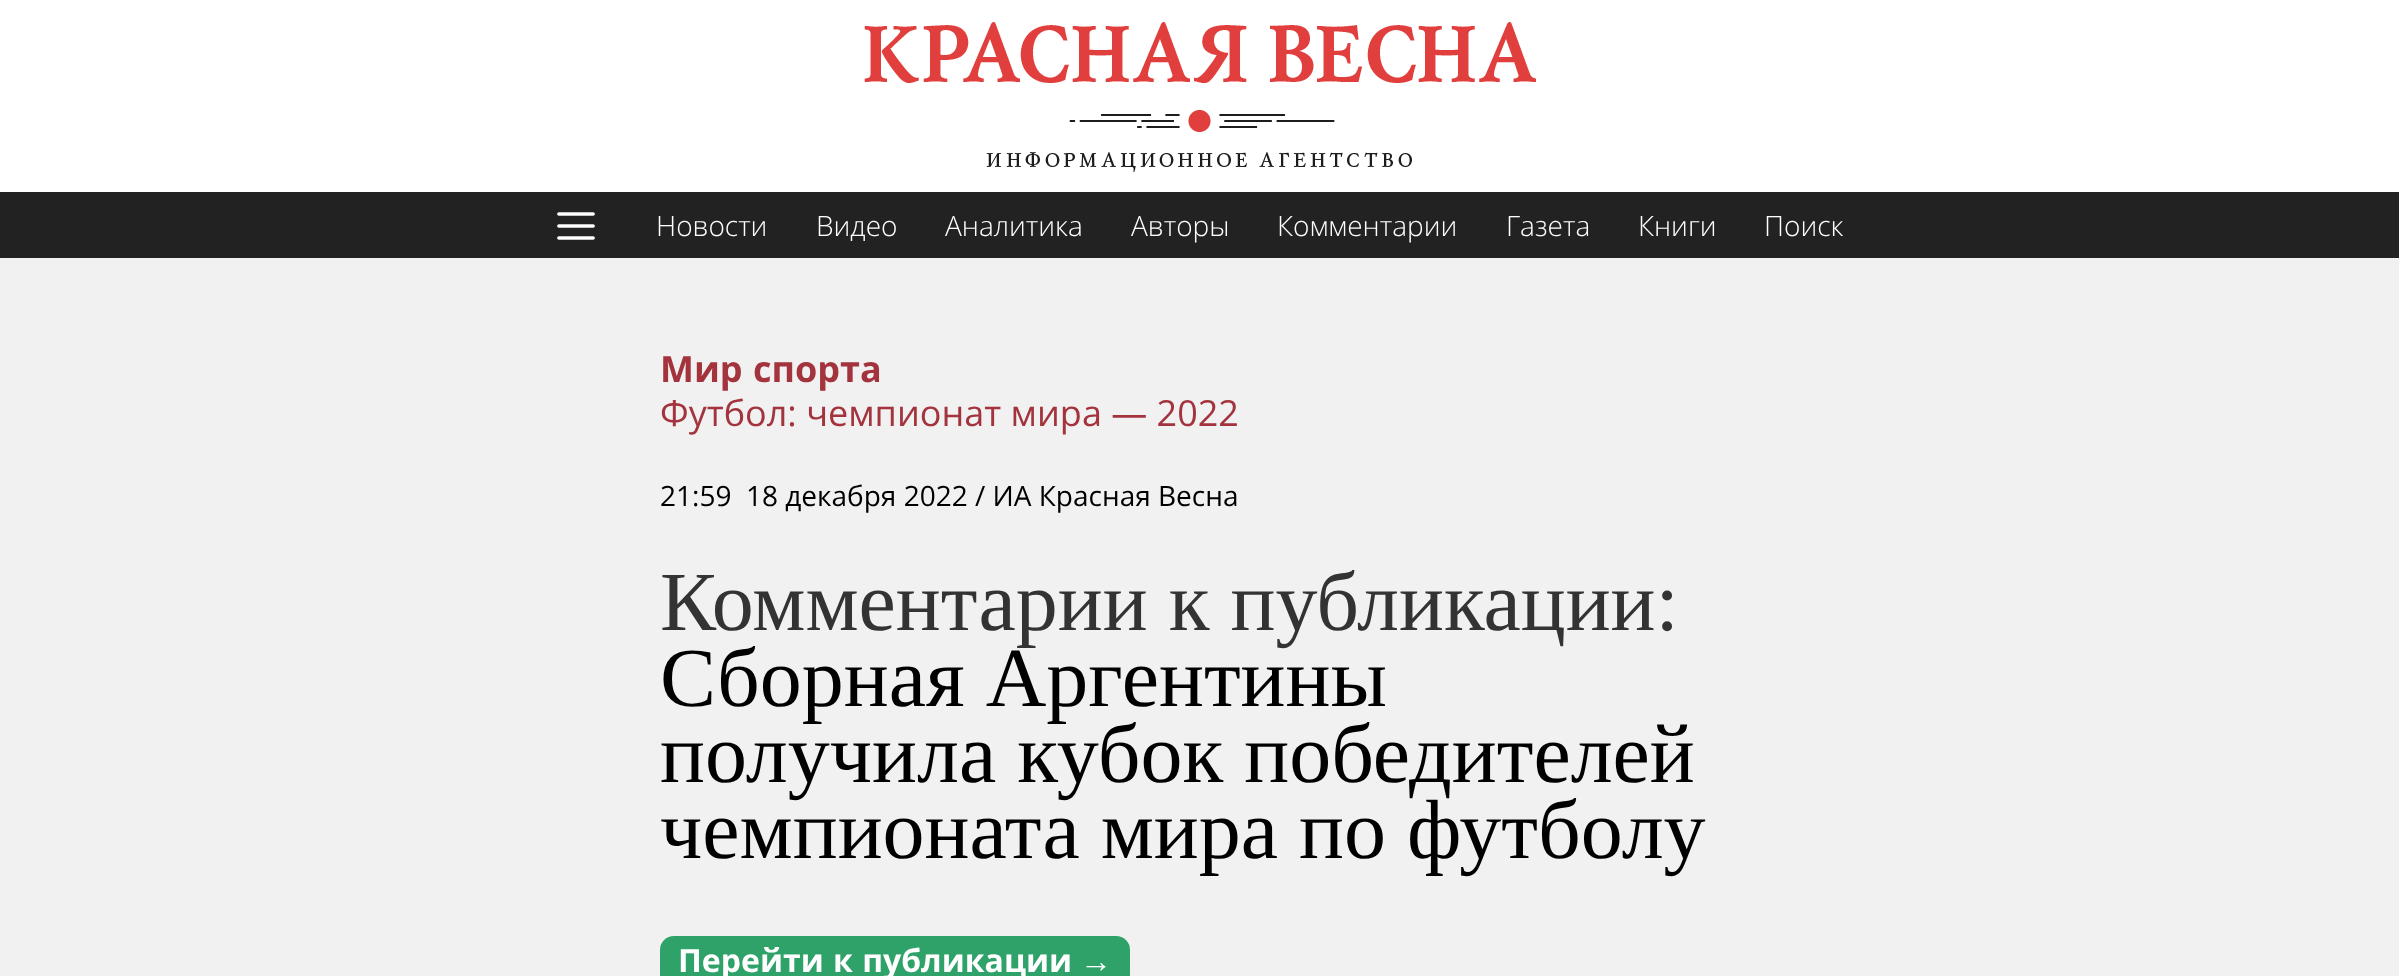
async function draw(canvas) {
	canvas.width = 2399;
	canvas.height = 976;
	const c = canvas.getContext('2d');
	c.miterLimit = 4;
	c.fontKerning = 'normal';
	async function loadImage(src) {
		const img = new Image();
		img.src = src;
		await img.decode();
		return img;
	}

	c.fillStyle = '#f1f1f1';
	c.fillRect(0, 0, 2399, 976);
	c.fillStyle = '#fff';
	c.fillRect(0, 0, 2399, 192);
	c.drawImage(await loadImage('img1.png'), 864, 22, 672, 150);
	c.fillStyle = '#222';
	c.fillRect(0, 192, 2399, 66);
	c.drawImage(await loadImage('img2.png'), 557, 212, 38, 28);
	c.font = '300 28px Open Sans';
	c.fillStyle = '#fff';
	for (const [text, x, y] of [
		['Новости', 656, 236],
		['Видео', 816, 236],
		['Аналитика', 945, 236],
		['Авторы', 1131, 236],
		['Комментарии', 1277, 236],
		['Газета', 1506, 236],
		['Книги', 1638, 236],
		['Поиск', 1764, 236],
	]) {
		c.fillText(text, x, y);
	}
	c.wordSpacing = '1px';
	c.font = 'bold 36px Open Sans';
	c.fillStyle = '#a3333d';
	c.fillText('Мир спорта', 660, 382);
	c.wordSpacing = '0px';
	c.font = '36px Open Sans';
	c.fillText('Футбол: чемпионат мира — 2022', 660, 426);
	c.font = '28px Open Sans';
	c.fillStyle = '#000';
	c.fillText('21:59  18 декабря 2022 / ИА Красная Весна', 660, 506);
	c.font = '84px Liberation Serif';
	c.fillStyle = '#333';
	c.fillText('Комментарии к публикации:', 660, 630);
	c.fillStyle = '#000';
	for (const [text, x, y] of [
		['Сборная Аргентины', 660, 706],
		['получила кубок победителей', 660, 782],
		['чемпионата мира по футболу', 660, 858],
	]) {
		c.fillText(text, x, y);
	}
	c.fillStyle = '#2fa26a';
	c.beginPath();
	c.roundRect(660, 936, 470, 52, 14);
	c.fill();
	c.wordSpacing = '1px';
	c.font = 'bold 32px Open Sans';
	c.fillStyle = '#fff';
	c.fillText('Перейти к публикации', 678, 972);
	c.wordSpacing = '0px';
	c.font = 'bold 32px Liberation Sans';
	c.fillText('→', 1080, 972);
}

draw(document.querySelector('canvas'));
